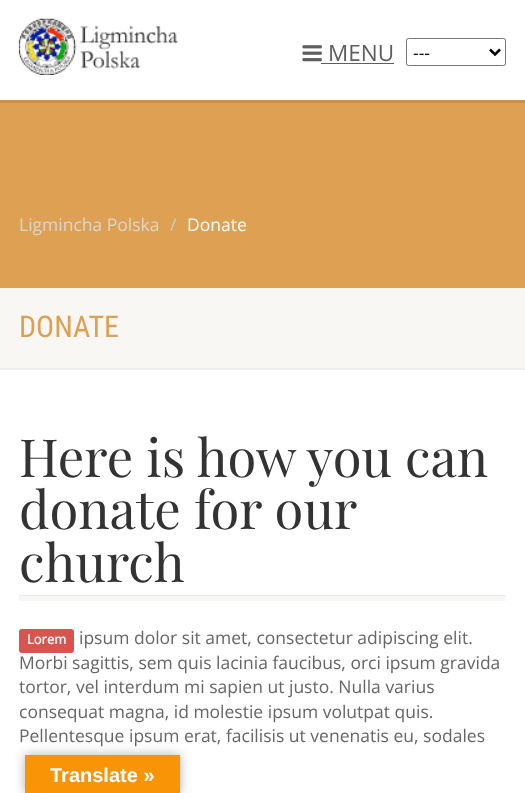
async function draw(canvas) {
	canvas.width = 525;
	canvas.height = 793;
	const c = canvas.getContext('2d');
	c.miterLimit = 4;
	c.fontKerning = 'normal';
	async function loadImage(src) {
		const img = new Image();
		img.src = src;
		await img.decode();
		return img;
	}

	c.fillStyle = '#fff';
	c.fillRect(0, 0, 525, 793);
	c.fillStyle = '#c8914c';
	c.fillRect(0, 100, 525, 3);
	c.drawImage(await loadImage('img1.png'), 18, 18, 160, 57);
	c.drawImage(await loadImage('img2.png'), 302, 45, 20, 17);
	c.font = '22.5px Open Sans';
	c.fillStyle = '#5e5e5e';
	c.fillText('MENU', 328, 61);
	c.fillRect(321, 63, 73, 1);
	c.beginPath();
	c.roundRect(406.5, 38.5, 99, 27, 2);
	c.strokeStyle = '#767676';
	c.stroke();
	c.beginPath();
	c.moveTo(490, 49.5);
	c.lineTo(495, 54.5);
	c.lineTo(500, 49.5);
	c.strokeStyle = '#000';
	c.lineWidth = 2.5;
	c.stroke();
	c.font = '17.5px Open Sans';
	c.fillStyle = '#000';
	c.fillText('---', 413, 59);
	c.fillStyle = '#dea154';
	c.fillRect(0, 103, 525, 185);
	c.fillStyle = '#d8d6d1';
	c.fillText('Ligmincha Polska', 19, 231);
	c.fillStyle = '#ccc';
	c.fillText('/', 170, 231);
	c.fillStyle = '#fff';
	c.fillText('Donate', 187, 231);
	c.fillStyle = '#ededed';
	c.fillRect(0, 368, 525, 2);
	c.fillStyle = '#f8f7f3';
	c.fillRect(0, 288, 525, 80);
	c.font = '30px Roboto Condensed';
	c.fillStyle = '#dea154';
	c.fillText('DONATE', 19, 337);
	c.fillStyle = '#eceae4';
	c.fillRect(19, 595, 487, 1);
	c.font = '52.5px Playfair Display';
	c.fillStyle = '#333';
	for (const [text, x, y] of [
		['Here is how you can', 19, 477],
		['donate for our', 19, 529],
		['church', 19, 582],
	]) {
		c.fillText(text, x, y);
	}
	c.fillStyle = '#f8f7f3';
	c.fillRect(19, 596, 487, 5);
	c.fillStyle = '#d9534f';
	c.beginPath();
	c.roundRect(19, 629, 55, 24, 3);
	c.fill();
	c.font = 'bold 13px Open Sans';
	c.fillStyle = '#fff';
	c.fillText('Lorem', 27, 644);
	c.font = '17.5px Open Sans';
	c.fillStyle = '#666';
	for (const [text, x, y] of [
		['ipsum dolor sit amet, consectetur adipiscing elit.', 79, 644],
		['Morbi sagittis, sem quis lacinia faucibus, orci ipsum gravida', 19, 669],
		['tortor, vel interdum mi sapien ut justo. Nulla varius', 19, 693],
		['consequat magna, id molestie ipsum volutpat quis.', 19, 718],
		['Pellentesque ipsum erat, facilisis ut venenatis eu, sodales', 19, 742],
	]) {
		c.fillText(text, x, y);
	}
	c.fillStyle = '#0000004d';
	c.filter = 'blur(5.5px)';
	c.beginPath();
	c.rect(25, 755, 155, 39);
	c.fill();
	c.filter = 'none';
	c.fillStyle = '#f89406';
	c.fillRect(25, 755, 155, 38);
	c.font = 'bold 20px Liberation Sans';
	c.fillStyle = '#fff';
	c.fillText('Translate »', 50, 782);
}

draw(document.querySelector('canvas'));
